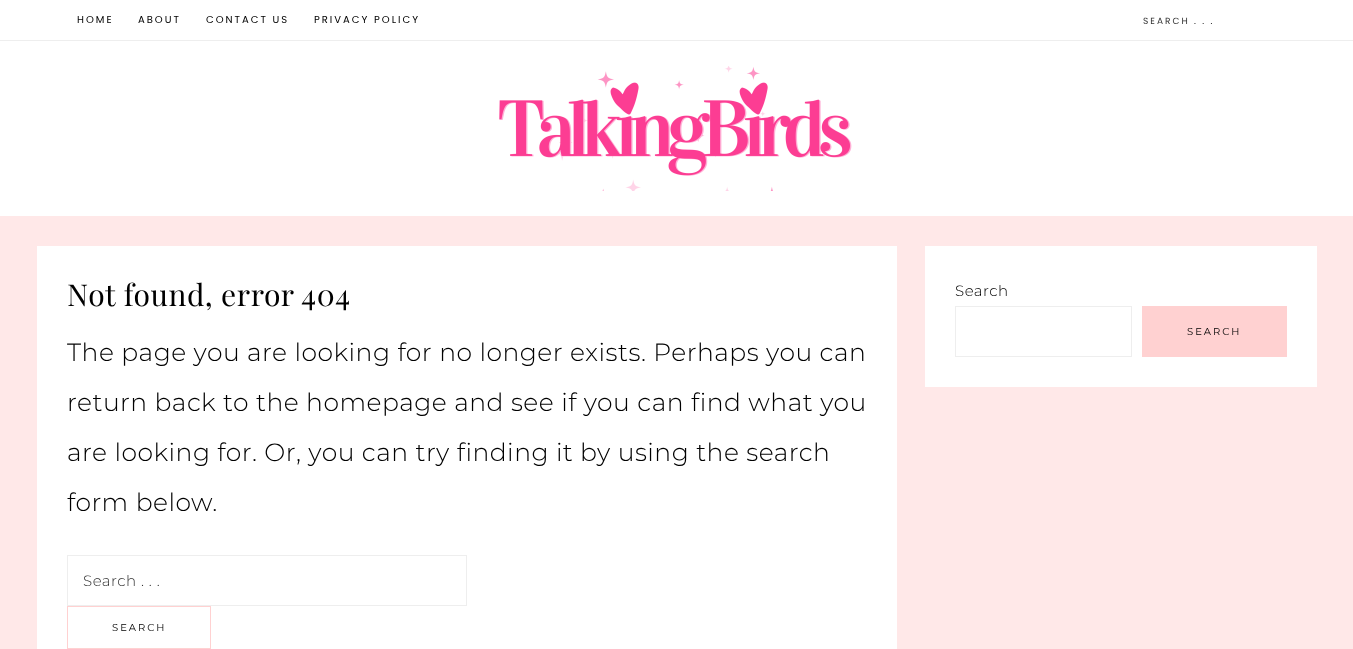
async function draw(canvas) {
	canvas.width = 1353;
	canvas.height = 649;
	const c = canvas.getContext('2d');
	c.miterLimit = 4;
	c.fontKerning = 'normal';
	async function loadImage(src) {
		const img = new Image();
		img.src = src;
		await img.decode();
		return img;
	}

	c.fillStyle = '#ffe8e8';
	c.fillRect(0, 0, 1353, 649);
	c.fillStyle = '#fff';
	c.fillRect(0, 0, 1353, 40);
	c.fillStyle = '#eee';
	c.fillRect(0, 40, 1353, 1);
	c.letterSpacing = '2px';
	c.font = '10px Poppins';
	c.fillStyle = '#000';
	for (const [text, x, y] of [
		['HOME', 77, 23],
		['ABOUT', 138, 23],
		['CONTACT US', 206, 23],
		['PRIVACY POLICY', 314, 23],
	]) {
		c.fillText(text, x, y);
	}
	c.font = '9px Poppins';
	c.fillStyle = '#333';
	c.fillText('SEARCH . . .', 1143, 24);
	c.fillStyle = '#fff';
	c.fillRect(0, 41, 1353, 175);
	c.drawImage(await loadImage('img1.png'), 499, 66, 353, 125);
	c.fillRect(37, 246, 860, 403);
	c.letterSpacing = '0.5px';
	c.font = '30px Playfair Display';
	c.fillStyle = '#000';
	c.fillText('Not found, error 404', 67, 306);
	c.font = '300 25px Montserrat';
	for (const [text, x, y] of [
		['The page you are looking for no longer exists. Perhaps you can', 67, 361],
		['return back to the homepage and see if you can find what you', 67, 411],
		['are looking for. Or, you can try finding it by using the search', 67, 461],
		['form below.', 67, 511],
	]) {
		c.fillText(text, x, y);
	}
	c.strokeStyle = '#eee';
	c.strokeRect(67.5, 555.5, 399, 50);
	c.font = '300 15px Montserrat';
	c.fillStyle = '#333';
	c.fillText('Search . . .', 83, 586);
	c.strokeStyle = '#ffd1d1';
	c.strokeRect(67.5, 606.5, 143, 42);
	c.letterSpacing = '2px';
	c.font = '10px Montserrat';
	c.fillStyle = '#000';
	c.fillText('SEARCH', 112, 631);
	c.fillStyle = '#fff';
	c.fillRect(925, 246, 392, 141);
	c.letterSpacing = '0.5px';
	c.font = '300 15px Montserrat';
	c.fillStyle = '#000';
	c.fillText('Search', 955, 296);
	c.strokeStyle = '#eee';
	c.strokeRect(955.5, 306.5, 176, 50);
	c.fillStyle = '#ffd1d1';
	c.fillRect(1142, 306, 145, 51);
	c.letterSpacing = '2px';
	c.font = '10px Montserrat';
	c.fillStyle = '#000';
	c.fillText('SEARCH', 1187, 335);
}

draw(document.querySelector('canvas'));
